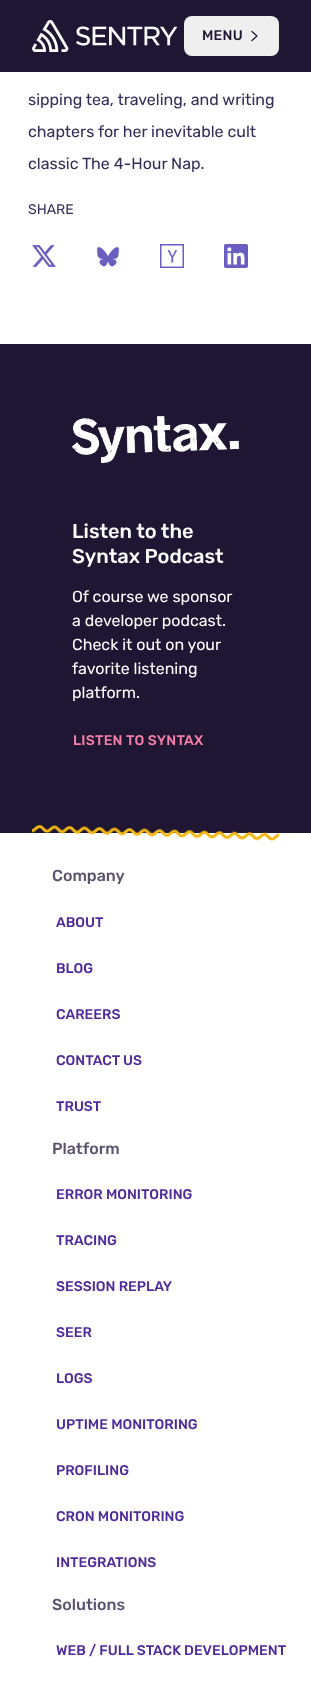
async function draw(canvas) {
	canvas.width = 311;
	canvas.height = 1692;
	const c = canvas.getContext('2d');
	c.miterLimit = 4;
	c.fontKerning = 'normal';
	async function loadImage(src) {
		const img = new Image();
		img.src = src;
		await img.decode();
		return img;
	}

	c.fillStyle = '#fff';
	c.fillRect(0, 0, 311, 1692);
	c.fillStyle = '#1f1633';
	c.fillRect(0, 0, 311, 72);
	c.drawImage(await loadImage('img1.png'), 32, 20, 145, 32);
	c.fillStyle = '#efefef';
	c.beginPath();
	c.roundRect(184, 16, 95, 40, 8);
	c.fill();
	c.letterSpacing = '0.25px';
	c.font = '300 14px Rubik';
	c.fillStyle = '#1f1633';
	c.fillText('MENU', 202, 40);
	c.beginPath();
	c.moveTo(252, 31.5);
	c.lineTo(257, 36);
	c.lineTo(252, 40.5);
	c.strokeStyle = '#1f1633';
	c.lineWidth = 1.2;
	c.lineCap = 'round';
	c.lineJoin = 'round';
	c.stroke();
	c.letterSpacing = '0px';
	c.font = '300 16px "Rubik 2"';
	c.fillStyle = '#362d59';
	for (const [text, x, y] of [
		['sipping tea, traveling, and writing', 28, 105],
		['chapters for her inevitable cult', 28, 137],
		['classic The 4-Hour Nap.', 28, 169],
	]) {
		c.fillText(text, x, y);
	}
	c.font = '300 14px "Rubik 2"';
	c.fillText('SHARE', 28, 214);
	c.drawImage(await loadImage('img2.png'), 32, 245, 24, 22);
	c.drawImage(await loadImage('img3.png'), 97, 247, 22, 20);
	c.drawImage(await loadImage('img4.png'), 160, 244, 24, 24);
	c.drawImage(await loadImage('img5.png'), 224, 244, 24, 24);
	c.fillStyle = '#1f1633';
	c.fillRect(0, 344, 311, 489);
	c.drawImage(await loadImage('img6.png'), 72, 416, 167, 47);
	c.font = '300 20px Rubik';
	c.fillStyle = '#fff';
	c.fillText('Listen to the', 72, 538);
	c.fillText('Syntax Podcast', 72, 563);
	c.font = '300 16px "Rubik 2"';
	for (const [text, x, y] of [
		['Of course we sponsor', 72, 602],
		['a developer podcast.', 72, 626],
		['Check it out on your', 72, 650],
		['favorite listening', 72, 674],
		['platform.', 72, 698],
	]) {
		c.fillText(text, x, y);
	}
	c.letterSpacing = '0.25px';
	c.font = '300 14px Rubik';
	c.fillStyle = '#fa7faa';
	c.fillText('LISTEN TO SYNTAX', 73, 745);
	c.drawImage(await loadImage('img7.png'), 31, 824, 249, 17);
	c.letterSpacing = '0px';
	c.font = '300 16px Rubik';
	c.fillStyle = '#5b536e';
	c.fillText('Company', 52, 881);
	c.font = '300 14px Rubik';
	c.fillStyle = '#4e2a9a';
	for (const [text, x, y] of [
		['ABOUT', 56, 927],
		['BLOG', 56, 973],
		['CAREERS', 56, 1019],
		['CONTACT US', 56, 1065],
		['TRUST', 56, 1111],
	]) {
		c.fillText(text, x, y);
	}
	c.font = '300 16px Rubik';
	c.fillStyle = '#5b536e';
	c.fillText('Platform', 52, 1154);
	c.font = '300 14px Rubik';
	c.fillStyle = '#4e2a9a';
	for (const [text, x, y] of [
		['ERROR MONITORING', 56, 1199],
		['TRACING', 56, 1245],
		['SESSION REPLAY', 56, 1291],
		['SEER', 56, 1337],
		['LOGS', 56, 1383],
		['UPTIME MONITORING', 56, 1429],
		['PROFILING', 56, 1475],
		['CRON MONITORING', 56, 1521],
		['INTEGRATIONS', 56, 1567],
	]) {
		c.fillText(text, x, y);
	}
	c.font = '300 16px Rubik';
	c.fillStyle = '#5b536e';
	c.fillText('Solutions', 52, 1610);
	c.font = '300 14px Rubik';
	c.fillStyle = '#4e2a9a';
	c.fillText('WEB / FULL STACK DEVELOPMENT', 56, 1655);
}

draw(document.querySelector('canvas'));
